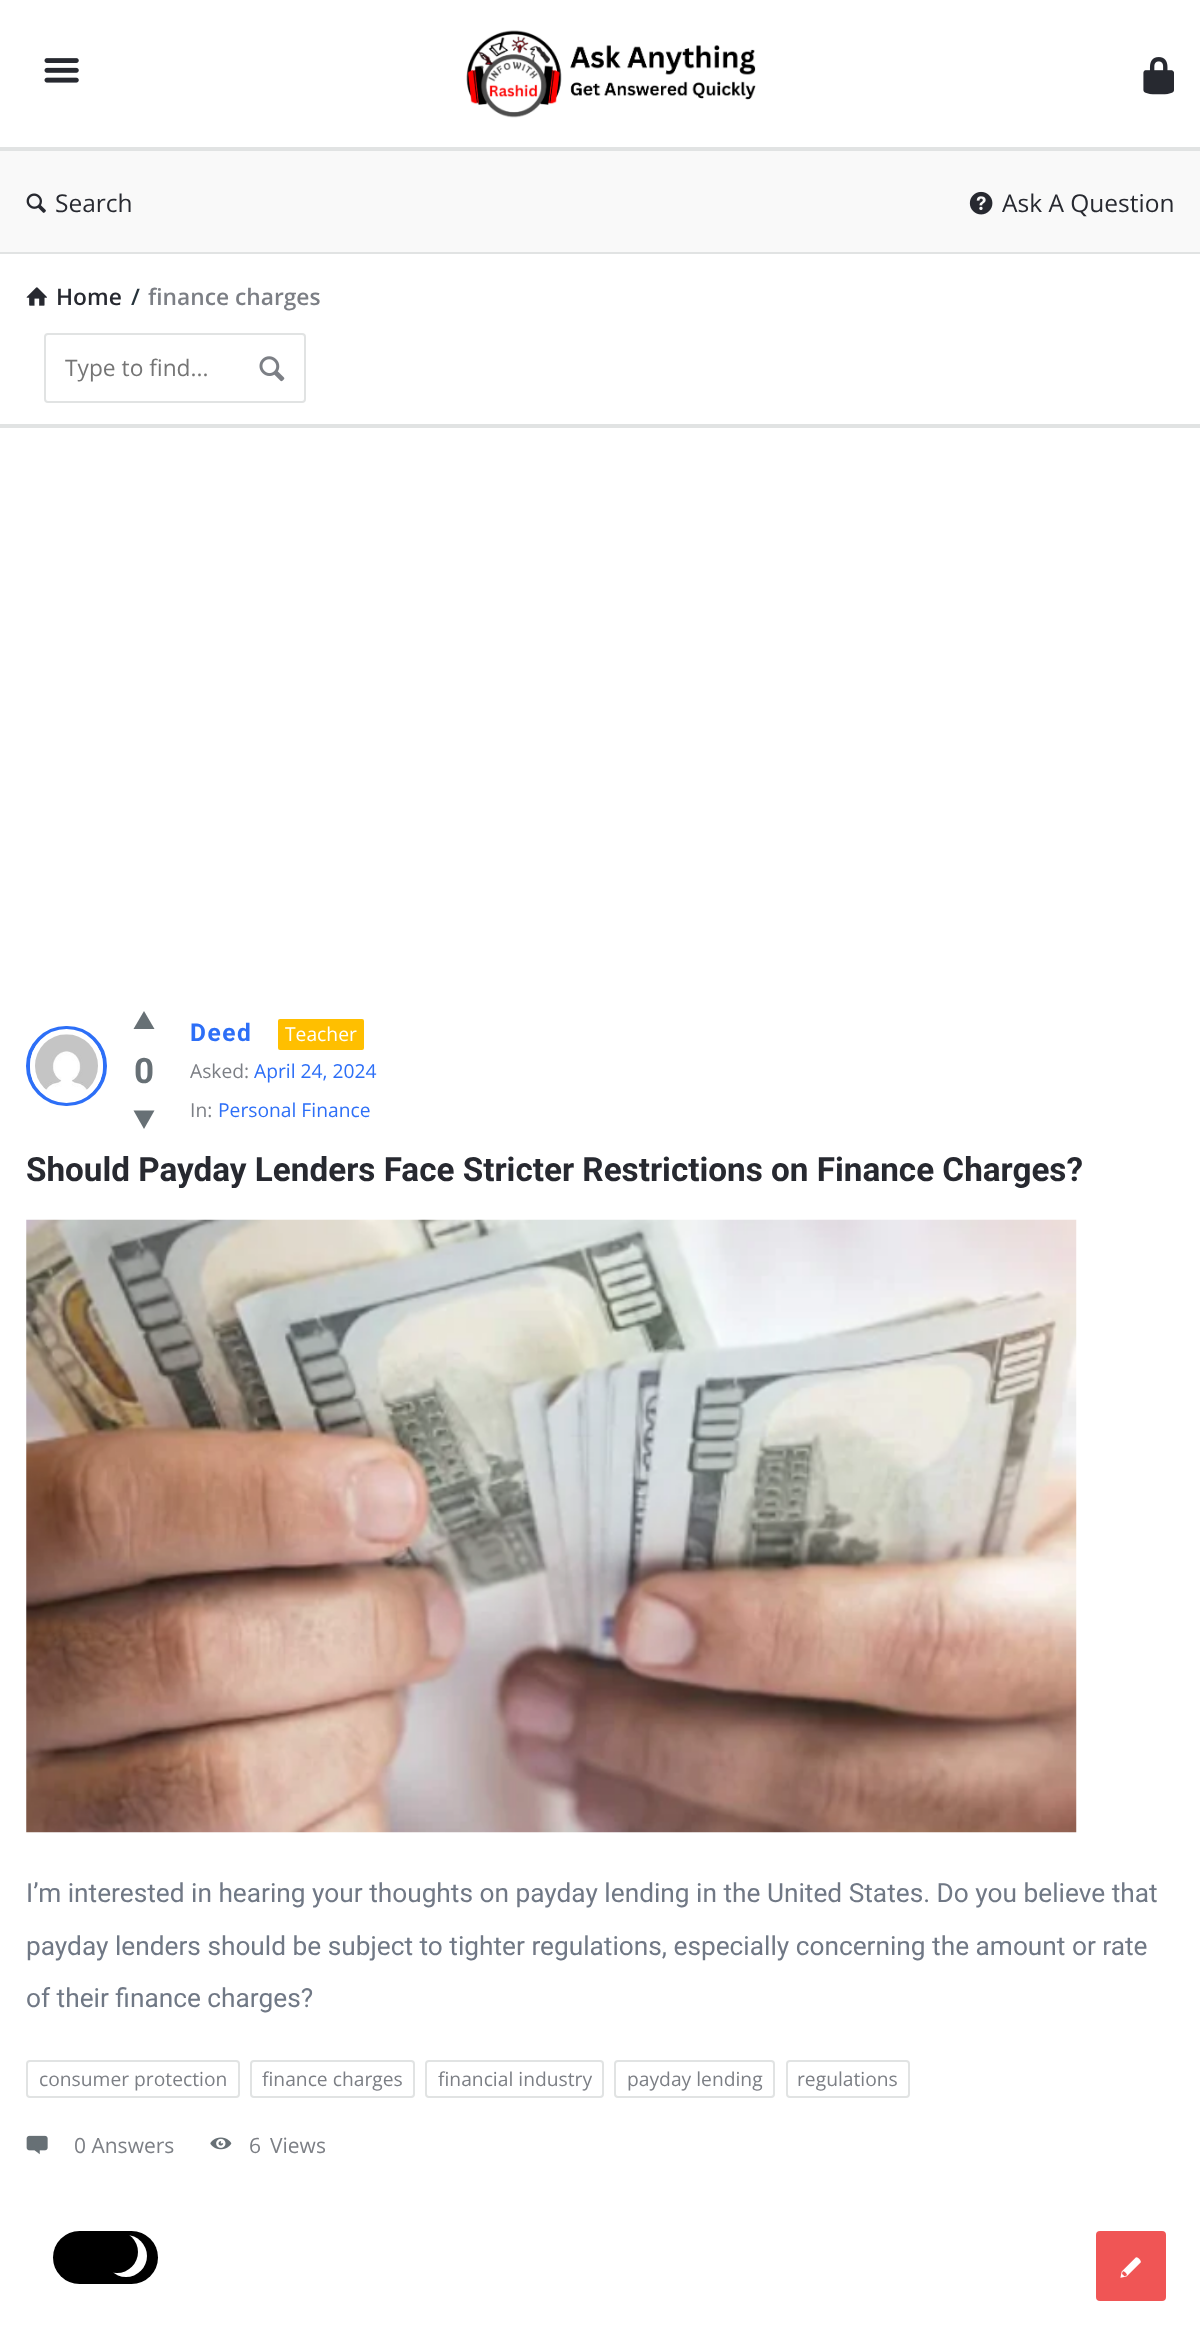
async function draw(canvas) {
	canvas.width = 1200;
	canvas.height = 2335;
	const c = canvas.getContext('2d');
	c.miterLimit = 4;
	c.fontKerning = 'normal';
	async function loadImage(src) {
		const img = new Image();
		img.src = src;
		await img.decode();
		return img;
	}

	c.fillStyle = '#fff';
	c.fillRect(0, 0, 1200, 2335);
	c.fillStyle = '#e1e3e3';
	c.fillRect(0, 147, 1200, 4);
	c.drawImage(await loadImage('img1.png'), 44, 58, 35, 25);
	c.drawImage(await loadImage('img2.png'), 466, 30, 290, 88);
	c.drawImage(await loadImage('img3.png'), 1143, 57, 31, 38);
	c.fillStyle = '#f9f9f9';
	c.fillRect(0, 151, 1200, 101);
	c.fillStyle = '#e1e3e3';
	c.fillRect(0, 252, 1200, 2);
	c.drawImage(await loadImage('img4.png'), 26, 193, 20, 20);
	c.font = '24.5px Open Sans';
	c.fillStyle = '#272930';
	c.fillText('Search', 55, 212);
	c.drawImage(await loadImage('img5.png'), 969, 191, 24, 24);
	c.fillText('Ask A Question', 1002, 212);
	c.fillStyle = '#e1e3e3';
	c.fillRect(0, 424, 1200, 4);
	c.drawImage(await loadImage('img6.png'), 26, 287, 21, 19);
	c.font = '600 22.75px Open Sans';
	c.fillStyle = '#272930';
	c.fillText('Home', 56, 305);
	c.fillStyle = '#26333b';
	c.fillText('/', 131, 305);
	c.fillStyle = '#7c7f85';
	c.fillText('finance charges', 148, 305);
	c.beginPath();
	c.roundRect(45, 334, 260, 68, 3);
	c.strokeStyle = '#e1e3e3';
	c.lineWidth = 2;
	c.stroke();
	c.font = '22.75px Open Sans';
	c.fillStyle = '#757575';
	c.fillText('Type to find...', 65, 376);
	c.drawImage(await loadImage('img7.png'), 259, 356, 26, 26);
	c.letterSpacing = '1.5px';
	c.font = 'bold 24.5px Roboto';
	c.fillStyle = '#2d6ff7';
	c.fillText('Deed', 190, 1041);
	c.fillStyle = '#ffbf00';
	c.beginPath();
	c.roundRect(278, 1019, 86, 31, 2);
	c.fill();
	c.letterSpacing = '0px';
	c.font = '19.25px Open Sans';
	c.fillStyle = '#fff';
	c.fillText('Teacher', 285, 1041);
	c.fillStyle = '#7c7f85';
	c.fillText('Asked:', 190, 1078);
	c.fillStyle = '#2d6ff7';
	c.fillText('April 24, 2024', 254, 1078);
	c.fillStyle = '#7c7f85';
	c.fillText('In:', 190, 1117);
	c.fillStyle = '#2d6ff7';
	c.fillText('Personal Finance', 218, 1117);
	c.font = 'bold 33.25px Roboto';
	c.fillStyle = '#272930';
	c.fillText('Should Payday Lenders Face Stricter Restrictions on Finance Charges?', 26, 1181);
	c.beginPath();
	c.roundRect(28, 1028, 77, 76, 38);
	c.strokeStyle = '#2d6ff7';
	c.lineWidth = 4;
	c.stroke();
	c.beginPath();
	c.roundRect(32.5, 1031.5, 68, 69, 34);
	c.strokeStyle = '#fff';
	c.lineWidth = 5;
	c.stroke();
	c.drawImage(await loadImage('img8.png'), 35, 1034, 63, 56);
	c.fillStyle = '#677075';
	c.beginPath();
	c.moveTo(133.5, 1029);
	c.lineTo(144, 1011);
	c.lineTo(154.5, 1029);
	c.closePath();
	c.fill();
	c.font = 'bold 35px Roboto';
	c.fillText('0', 134, 1083);
	c.beginPath();
	c.moveTo(154.5, 1110.5);
	c.lineTo(144, 1129);
	c.lineTo(133.5, 1110.5);
	c.closePath();
	c.fill();
	c.drawImage(await loadImage('img9.png'), 26, 1219, 1051, 614);
	c.font = '26.25px Roboto';
	c.fillStyle = '#707885';
	for (const [text, x, y] of [
		['I’m interested in hearing your thoughts on payday lending in the United States. Do you believe that', 26, 1902],
		['payday lenders should be subject to tighter regulations, especially concerning the amount or rate', 26, 1955],
		['of their finance charges?', 26, 2007],
	]) {
		c.fillText(text, x, y);
	}
	c.beginPath();
	c.roundRect(27, 2061, 212, 36, 3);
	c.strokeStyle = '#e1e3e3';
	c.lineWidth = 2;
	c.stroke();
	c.font = '19.25px Open Sans';
	c.fillStyle = '#7c7f85';
	c.fillText('consumer protection', 39, 2086);
	c.beginPath();
	c.roundRect(251, 2061, 163, 36, 3);
	c.stroke();
	c.fillText('finance charges', 262, 2086);
	c.beginPath();
	c.roundRect(426, 2061, 177, 36, 3);
	c.stroke();
	c.fillText('financial industry', 438, 2086);
	c.beginPath();
	c.roundRect(615, 2061, 159, 36, 3);
	c.stroke();
	c.fillText('payday lending', 627, 2086);
	c.beginPath();
	c.roundRect(787, 2061, 122, 36, 3);
	c.stroke();
	c.fillText('regulations', 797, 2086);
	c.drawImage(await loadImage('img10.png'), 26, 2135, 22, 20);
	c.font = '21px Open Sans';
	c.fillText('0 Answers', 74, 2153);
	c.drawImage(await loadImage('img11.png'), 210, 2137, 22, 13);
	c.fillText('6', 249, 2153);
	c.fillText('Views', 270, 2153);
	c.fillStyle = '#000';
	c.beginPath();
	c.roundRect(53, 2231, 105, 53, 26.5);
	c.fill();
	c.fillStyle = '#fff';
	c.beginPath();
	c.arc(126, 2256, 21, 0, 2 * Math.PI);
	c.fill();
	c.fillStyle = '#000';
	c.beginPath();
	c.arc(117, 2252, 21, 0, 2 * Math.PI);
	c.fill();
	c.fillStyle = '#f05555';
	c.beginPath();
	c.roundRect(1096, 2231, 70, 70, 4);
	c.fill();
	c.drawImage(await loadImage('img12.png'), 1120, 2257, 21, 21);
}

draw(document.querySelector('canvas'));
